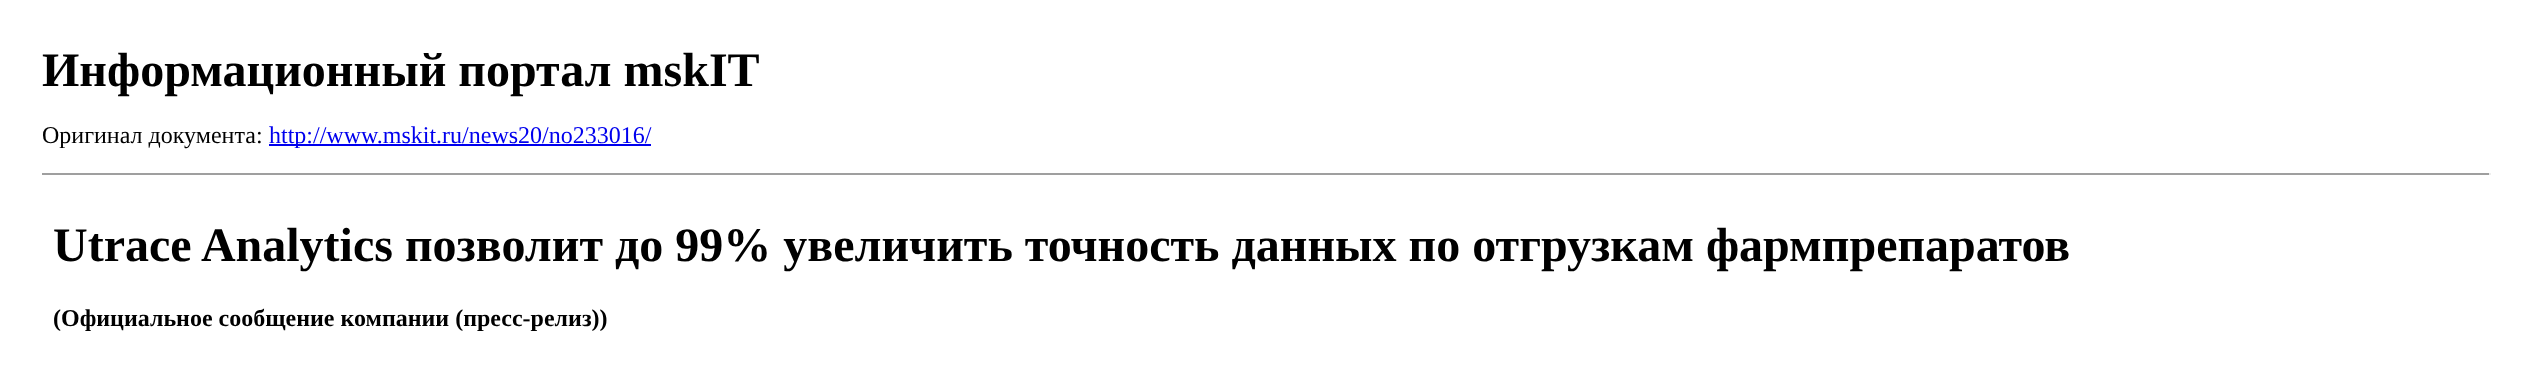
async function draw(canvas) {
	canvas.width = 2528;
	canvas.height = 366;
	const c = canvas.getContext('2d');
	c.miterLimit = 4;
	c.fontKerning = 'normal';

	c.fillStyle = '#fff';
	c.fillRect(0, 0, 2528, 366);
	c.font = 'bold 48px Liberation Serif';
	c.fillStyle = '#000';
	c.fillText('Информационный портал mskIT', 42, 86);
	c.font = '24px Liberation Serif';
	c.fillText('Оригинал документа:', 42, 143);
	c.fillStyle = '#00e';
	c.fillRect(269, 144, 382, 2);
	c.fillText('http://www.mskit.ru/news20/no233016/', 269, 143);
	c.fillStyle = '#9f9f9f';
	c.fillRect(42, 173, 2448, 2);
	c.fillStyle = '#eee';
	c.fillRect(2489, 173, 2, 2);
	c.font = 'bold 48px Liberation Serif';
	c.fillStyle = '#000';
	c.fillText('Utrace Analytics позволит до 99% увеличить точность данных по отгрузкам фармпрепаратов', 53, 261);
	c.font = 'bold 24px Liberation Serif';
	c.fillText('(Официальное сообщение компании (пресс-релиз))', 53, 326);
}

draw(document.querySelector('canvas'));
